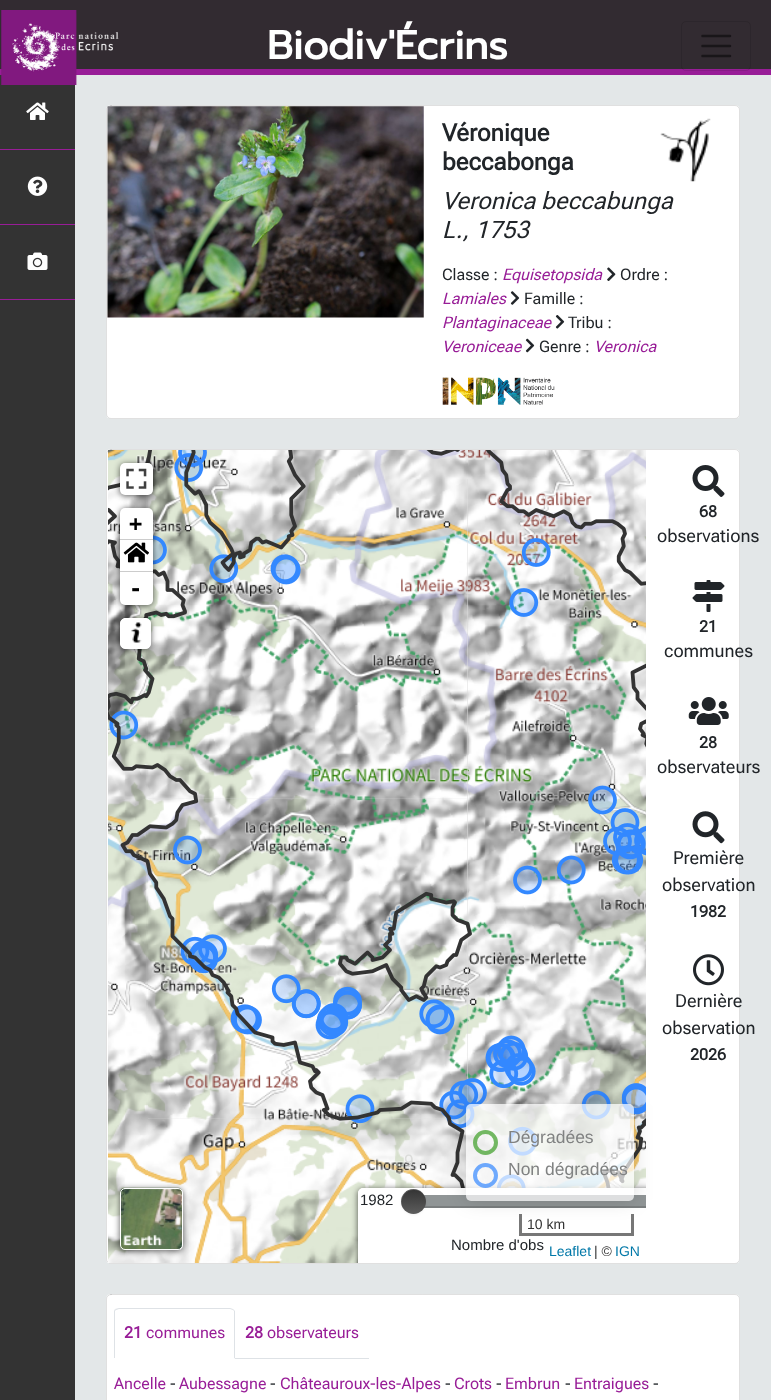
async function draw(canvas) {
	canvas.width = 771;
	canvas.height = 1400;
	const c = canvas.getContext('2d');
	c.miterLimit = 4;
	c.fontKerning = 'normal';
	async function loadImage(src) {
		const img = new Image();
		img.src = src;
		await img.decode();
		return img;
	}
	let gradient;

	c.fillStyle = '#e3e7e8';
	c.fillRect(0, 0, 771, 1400);
	for (const [x, y, w, h, color] of [
		[0, 0, 771, 69, '#322b31'],
		[0, 69, 771, 6, '#981d97'],
		[0, 75, 75, 1325, '#333'],
	]) {
		c.fillStyle = color;
		c.fillRect(x, y, w, h);
	}
	c.drawImage(await loadImage('img1.png'), 1, 10, 118, 75);
	c.font = 'bold 40px Prompt';
	c.fillStyle = '#fff';
	c.fillText('Biodiv\'Écrins', 267, 59);
	c.beginPath();
	c.roundRect(681.5, 21.5, 69, 49, 4.5);
	c.strokeStyle = '#0000001a';
	c.stroke();
	c.beginPath();
	c.moveTo(702.5, 36);
	c.lineTo(730, 36);
	c.moveTo(702.5, 46);
	c.lineTo(730, 46);
	c.moveTo(702.5, 56);
	c.lineTo(730, 56);
	c.strokeStyle = '#191619';
	c.lineWidth = 2.5;
	c.lineCap = 'round';
	c.stroke();
	c.fillStyle = '#981d97';
	c.fillRect(0, 149, 75, 1);
	c.drawImage(await loadImage('img2.png'), 26, 102, 23, 18);
	c.fillRect(0, 224, 75, 1);
	c.drawImage(await loadImage('img3.png'), 27, 176, 21, 20);
	c.fillRect(0, 299, 75, 1);
	c.drawImage(await loadImage('img4.png'), 27, 252, 21, 18);
	c.fillStyle = '#fff';
	c.beginPath();
	c.roundRect(106, 105, 634, 314, 5);
	c.fill();
	c.beginPath();
	c.roundRect(106.5, 105.5, 633, 313, 4.5);
	c.strokeStyle = '#0000001f';
	c.lineWidth = 1;
	c.stroke();
	c.drawImage(await loadImage('img5.png'), 107, 106, 317, 212);
	c.font = 'bold 24px Roboto Flex';
	c.fillStyle = '#212529';
	c.fillText('Véronique', 442, 141);
	c.fillText('beccabonga', 442, 170);
	c.font = 'italic 24px Roboto Flex';
	c.fillText('Veronica beccabunga', 442, 209);
	c.fillText('L., 1753', 442, 238);
	c.font = '16px Roboto Flex';
	c.fillText('Classe :', 442, 280);
	c.font = 'italic 16px Roboto Flex';
	c.fillStyle = '#981d97';
	c.fillText('Equisetopsida', 502, 280);
	c.drawImage(await loadImage('img6.png'), 607, 267, 9, 14);
	c.font = '16px Roboto Flex';
	c.fillStyle = '#212529';
	c.fillText('Ordre :', 620, 280);
	c.font = 'italic 16px Roboto Flex';
	c.fillStyle = '#981d97';
	c.fillText('Lamiales', 442, 304);
	c.drawImage(await loadImage('img7.png'), 510, 291, 10, 14);
	c.font = '16px Roboto Flex';
	c.fillStyle = '#212529';
	c.fillText('Famille :', 524, 304);
	c.font = 'italic 16px Roboto Flex';
	c.fillStyle = '#981d97';
	c.fillText('Plantaginaceae', 442, 328);
	c.drawImage(await loadImage('img8.png'), 555, 315, 10, 14);
	c.font = '16px Roboto Flex';
	c.fillStyle = '#212529';
	c.fillText('Tribu :', 568, 328);
	c.font = 'italic 16px Roboto Flex';
	c.fillStyle = '#981d97';
	c.fillText('Veroniceae', 442, 352);
	c.drawImage(await loadImage('img9.png'), 525, 338, 10, 15);
	c.font = '16px Roboto Flex';
	c.fillStyle = '#212529';
	c.fillText('Genre :', 539, 352);
	c.font = 'italic 16px Roboto Flex';
	c.fillStyle = '#981d97';
	c.fillText('Veronica', 594, 352);
	c.drawImage(await loadImage('img10.png'), 442, 377, 113, 28);
	c.drawImage(await loadImage('img11.png'), 660, 118, 51, 64);
	c.fillStyle = '#fff';
	c.beginPath();
	c.roundRect(106, 449, 634, 815, 5);
	c.fill();
	c.beginPath();
	c.roundRect(106.5, 449.5, 633, 814, 4.5);
	c.stroke();
	c.fillStyle = '#ddd';
	c.fillRect(148, 479, 320, 640);
	c.drawImage(await loadImage('img12.png'), 108, 450, 40, 29);
	c.drawImage(await loadImage('img13.png'), 148, 450, 320, 29);
	c.drawImage(await loadImage('img14.png'), 468, 450, 178, 29);
	c.drawImage(await loadImage('img15.png'), 108, 479, 40, 320);
	c.drawImage(await loadImage('img16.png'), 148, 479, 320, 320);
	c.drawImage(await loadImage('img17.png'), 468, 479, 178, 320);
	c.drawImage(await loadImage('img18.png'), 108, 799, 40, 320);
	c.drawImage(await loadImage('img19.png'), 148, 798, 320, 321);
	c.drawImage(await loadImage('img20.png'), 468, 798, 178, 321);
	c.drawImage(await loadImage('img21.png'), 108, 1118, 40, 145);
	c.drawImage(await loadImage('img22.png'), 148, 1118, 320, 145);
	c.drawImage(await loadImage('img23.png'), 468, 1118, 178, 70);
	c.drawImage(await loadImage('img24.png'), 108, 450, 538, 738);
	c.fillStyle = '#000000a6';
	c.filter = 'blur(3px)';
	c.beginPath();
	c.roundRect(120, 464, 33, 32, 5);
	c.fill();
	c.filter = 'none';
	c.fillStyle = '#fff';
	c.beginPath();
	c.roundRect(120, 463, 33, 32, 5);
	c.fill();
	c.drawImage(await loadImage('img25.png'), 126, 468, 21, 21);
	c.fillStyle = '#000000a6';
	c.filter = 'blur(3px)';
	c.beginPath();
	c.roundRect(120, 509, 33, 97, 5);
	c.fill();
	c.filter = 'none';
	c.fillStyle = '#fff';
	c.beginPath();
	c.roundRect(120, 508, 33, 32, [5, 5, 0, 0]);
	c.fill();
	c.fillStyle = '#ccc';
	c.fillRect(120, 539, 33, 1);
	c.font = 'bold 22px DejaVu Sans Mono';
	c.fillStyle = '#000';
	c.fillText('+', 129, 531);
	c.fillStyle = '#fff';
	c.fillRect(120, 540, 33, 33);
	c.fillStyle = '#ccc';
	c.fillRect(120, 571, 33, 1);
	c.drawImage(await loadImage('img26.png'), 123, 542, 26, 21);
	c.fillStyle = '#fff';
	c.beginPath();
	c.roundRect(120, 573, 33, 32, [0, 0, 5, 5]);
	c.fill();
	c.fillStyle = '#000';
	c.fillText('-', 129, 596);
	c.fillStyle = '#000000a6';
	c.filter = 'blur(3px)';
	c.beginPath();
	c.roundRect(120, 619, 31, 31, 5);
	c.fill();
	c.filter = 'none';
	c.fillStyle = '#fff';
	c.beginPath();
	c.roundRect(120.5, 618.5, 30, 30, 4.5);
	c.fill();
	c.strokeStyle = '#fff';
	c.stroke();
	c.drawImage(await loadImage('img27.png'), 131, 622, 11, 21);
	c.save();
	c.beginPath();
	c.moveTo(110, 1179);
	c.lineTo(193, 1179);
	c.lineTo(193, 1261);
	c.lineTo(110, 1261);
	c.closePath();
	c.moveTo(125, 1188);
	c.lineTo(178, 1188);
	c.bezierCurveTo(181, 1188, 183, 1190, 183, 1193);
	c.lineTo(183, 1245);
	c.bezierCurveTo(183, 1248, 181, 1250, 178, 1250);
	c.lineTo(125, 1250);
	c.bezierCurveTo(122, 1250, 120, 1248, 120, 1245);
	c.lineTo(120, 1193);
	c.bezierCurveTo(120, 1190, 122, 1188, 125, 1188);
	c.closePath();
	c.clip('evenodd');
	c.fillStyle = '#000000a6';
	c.filter = 'blur(3px)';
	c.beginPath();
	c.roundRect(120, 1189, 63, 62, 5);
	c.fill();
	c.filter = 'none';
	c.restore();
	c.drawImage(await loadImage('img28.png'), 120, 1187, 63, 63);
	c.beginPath();
	c.roundRect(120.5, 1188.5, 62, 61, 4.5);
	c.stroke();
	c.save();
	c.beginPath();
	c.rect(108, 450, 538, 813);
	c.clip();
	c.fillStyle = '#000000a6';
	c.filter = 'blur(3px)';
	c.beginPath();
	c.roundRect(358, 1189, 375, 87, 5);
	c.fill();
	c.filter = 'none';
	c.restore();
	c.beginPath();
	c.roundRect(358, 1188, 288, 75, [5, 0, 0, 0]);
	c.fill();
	c.save();
	c.beginPath();
	c.rect(108, 450, 538, 813);
	c.clip();
	c.beginPath();
	c.roundRect(358.5, 1188.5, 374, 86, 4.5);
	c.stroke();
	c.restore();
	c.font = '17.5px Roboto';
	c.fillStyle = '#dbdcda';
	c.fillText('9', 404, 1167);
	c.fillStyle = '#909596';
	c.fillRect(424, 1195, 222, 13);
	c.save();
	c.beginPath();
	c.rect(108, 450, 538, 813);
	c.clip();
	c.fillStyle = '#00000026';
	c.beginPath();
	c.moveTo(414, 1202);
	c.bezierCurveTo(414, 1205, 415, 1208, 419, 1208);
	c.lineTo(671, 1208);
	c.bezierCurveTo(676, 1208, 676, 1203, 676, 1200);
	c.bezierCurveTo(676, 1203, 676, 1206, 671, 1206);
	c.lineTo(419, 1206);
	c.bezierCurveTo(416, 1206, 415, 1204, 414, 1202);
	c.closePath();
	c.fill();
	c.restore();
	c.fillStyle = '#0000000d';
	c.filter = 'blur(1px)';
	c.beginPath();
	c.roundRect(401, 1190, 25, 25, 12.5);
	c.fill();
	c.filter = 'none';
	gradient = c.createLinearGradient(414, 1189, 414, 1214);
	gradient.addColorStop(0, '#333');
	gradient.addColorStop(1, '#5d5d5d');
	c.fillStyle = gradient;
	c.beginPath();
	c.arc(413.5, 1201.5, 12.5, 0, 2 * Math.PI);
	c.fill();
	c.fillStyle = '#ffffff33';
	c.beginPath();
	c.moveTo(414, 1190);
	c.bezierCurveTo(422, 1190, 426, 1196, 426, 1202);
	c.bezierCurveTo(426, 1199.5, 425.5, 1196.5, 424, 1194.5);
	c.bezierCurveTo(416, 1182.5, 398, 1191.5, 401.5, 1205);
	c.bezierCurveTo(400.5, 1198, 404.5, 1190, 414, 1190);
	c.closePath();
	c.fill();
	c.font = '15px Liberation Sans';
	c.fillStyle = '#212529';
	c.fillText('1982', 360, 1205);
	c.fillText('Nombre d\'obs', 451, 1250);
	c.save();
	c.beginPath();
	c.moveTo(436, 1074);
	c.lineTo(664, 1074);
	c.lineTo(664, 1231);
	c.lineTo(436, 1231);
	c.closePath();
	c.moveTo(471, 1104);
	c.lineTo(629, 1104);
	c.bezierCurveTo(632, 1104, 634, 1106, 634, 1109);
	c.lineTo(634, 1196);
	c.bezierCurveTo(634, 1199, 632, 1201, 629, 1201);
	c.lineTo(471, 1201);
	c.bezierCurveTo(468, 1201, 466, 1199, 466, 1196);
	c.lineTo(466, 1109);
	c.bezierCurveTo(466, 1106, 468, 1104, 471, 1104);
	c.closePath();
	c.clip('evenodd');
	c.fillStyle = '#00000024';
	c.filter = 'blur(9.5px)';
	c.beginPath();
	c.roundRect(466, 1104, 168, 97, 5);
	c.fill();
	c.filter = 'none';
	c.restore();
	c.fillStyle = '#ffffffb3';
	c.beginPath();
	c.roundRect(466, 1104, 168, 97, 5);
	c.fill();
	c.beginPath();
	c.arc(485.5, 1142.5, 10.5, 0, 2 * Math.PI);
	c.strokeStyle = '#3a9d23b3';
	c.lineWidth = 4;
	c.stroke();
	c.font = '17.5px Liberation Sans';
	c.fillStyle = '#808282';
	c.fillText('Dégradées', 508, 1143);
	c.beginPath();
	c.arc(485.5, 1175.5, 10.5, 0, 2 * Math.PI);
	c.strokeStyle = '#3388ffb3';
	c.stroke();
	c.fillText('Non dégradées', 508, 1175);
	for (const [x, y, w, h, color] of [
		[631, 1214, 3, 21, '#777'],
		[519, 1233, 115, 3, '#777'],
		[519, 1214, 3, 21, '#777'],
	]) {
		c.fillStyle = color;
		c.fillRect(x, y, w, h);
	}
	c.font = '14px Liberation Sans';
	c.fillStyle = '#333';
	c.fillText('10 km', 527, 1229);
	c.fillStyle = '#0078a8';
	c.fillText('Leaflet', 549, 1256);
	c.fillStyle = '#333';
	c.fillText('| ©', 594, 1256);
	c.fillStyle = '#0078a8';
	c.fillText('IGN', 615, 1256);
	c.drawImage(await loadImage('img29.png'), 692, 465, 33, 32);
	c.font = 'bold 16px Roboto Flex';
	c.fillStyle = '#212529';
	c.fillText('68', 699, 517);
	c.font = '18px Roboto Flex';
	c.fillText('observations', 657, 542);
	c.drawImage(await loadImage('img30.png'), 692, 580, 33, 32);
	c.font = 'bold 16px Roboto Flex';
	c.fillText('21', 699, 632);
	c.font = '18px Roboto Flex';
	c.fillText('communes', 664, 657);
	c.drawImage(await loadImage('img31.png'), 688, 697, 41, 28);
	c.font = 'bold 16px Roboto Flex';
	c.fillText('28', 699, 748);
	c.font = '18px Roboto Flex';
	c.fillText('observateurs', 657, 773);
	c.drawImage(await loadImage('img32.png'), 692, 811, 33, 33);
	c.fillText('Première', 673, 864);
	c.fillText('observation', 662, 891);
	c.font = 'bold 16px Roboto Flex';
	c.fillText('1982', 690, 917);
	c.drawImage(await loadImage('img33.png'), 693, 954, 31, 32);
	c.font = '18px Roboto Flex';
	c.fillText('Dernière', 675, 1007);
	c.fillText('observation', 662, 1034);
	c.font = 'bold 16px Roboto Flex';
	c.fillText('2026', 690, 1060);
	c.fillStyle = '#fff';
	c.beginPath();
	c.roundRect(106, 1294, 634, 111, 5);
	c.fill();
	c.beginPath();
	c.roundRect(106.5, 1294.5, 633, 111, 4.5);
	c.strokeStyle = '#0000001f';
	c.lineWidth = 1;
	c.stroke();
	c.fillStyle = '#dee2e6';
	c.fillRect(235, 1358, 134, 1);
	c.beginPath();
	c.moveTo(119, 1308);
	c.lineTo(115, 1309);
	c.lineTo(116, 1310);
	c.lineTo(119, 1309);
	c.lineTo(230, 1309);
	c.lineTo(233, 1310);
	c.lineTo(233, 1309);
	c.lineTo(230, 1308);
	c.closePath();
	c.fill();
	c.beginPath();
	c.moveTo(235, 1359);
	c.lineTo(235, 1311);
	c.lineTo(233, 1309);
	c.lineTo(233, 1310);
	c.lineTo(234, 1311);
	c.lineTo(234, 1358);
	c.closePath();
	c.fill();
	c.fillStyle = '#fff';
	c.beginPath();
	c.moveTo(235, 1359);
	c.lineTo(114, 1359);
	c.lineTo(115, 1358);
	c.lineTo(234, 1358);
	c.closePath();
	c.fill();
	c.fillStyle = '#dee2e6';
	c.beginPath();
	c.moveTo(115, 1309);
	c.lineTo(114, 1311);
	c.lineTo(114, 1358);
	c.lineTo(115, 1358);
	c.lineTo(115, 1311);
	c.lineTo(116, 1310);
	c.closePath();
	c.fill();
	c.fillStyle = '#981d97';
	c.fillText('21', 124, 1338);
	c.font = '16px Roboto Flex';
	c.fillText('communes', 146, 1338);
	c.font = 'bold 16px Roboto Flex';
	c.fillText('28', 245, 1338);
	c.font = '16px Roboto Flex';
	c.fillText('observateurs', 267, 1338);
	c.fillText('Ancelle', 114, 1389);
	c.fillStyle = '#212529';
	c.fillText('-', 170, 1389);
	c.fillStyle = '#981d97';
	c.fillText('Aubessagne', 179, 1389);
	c.fillStyle = '#212529';
	c.fillText('-', 270, 1389);
	c.fillStyle = '#981d97';
	c.fillText('Châteauroux-les-Alpes', 280, 1389);
	c.fillStyle = '#212529';
	c.fillText('-', 445, 1389);
	c.fillStyle = '#981d97';
	c.fillText('Crots', 454, 1389);
	c.fillStyle = '#212529';
	c.fillText('-', 496, 1389);
	c.fillStyle = '#981d97';
	c.fillText('Embrun', 505, 1389);
	c.fillStyle = '#212529';
	c.fillText('-', 565, 1389);
	c.fillStyle = '#981d97';
	c.fillText('Entraigues', 574, 1389);
	c.fillStyle = '#212529';
	c.fillText('-', 653, 1389);
}

draw(document.querySelector('canvas'));
